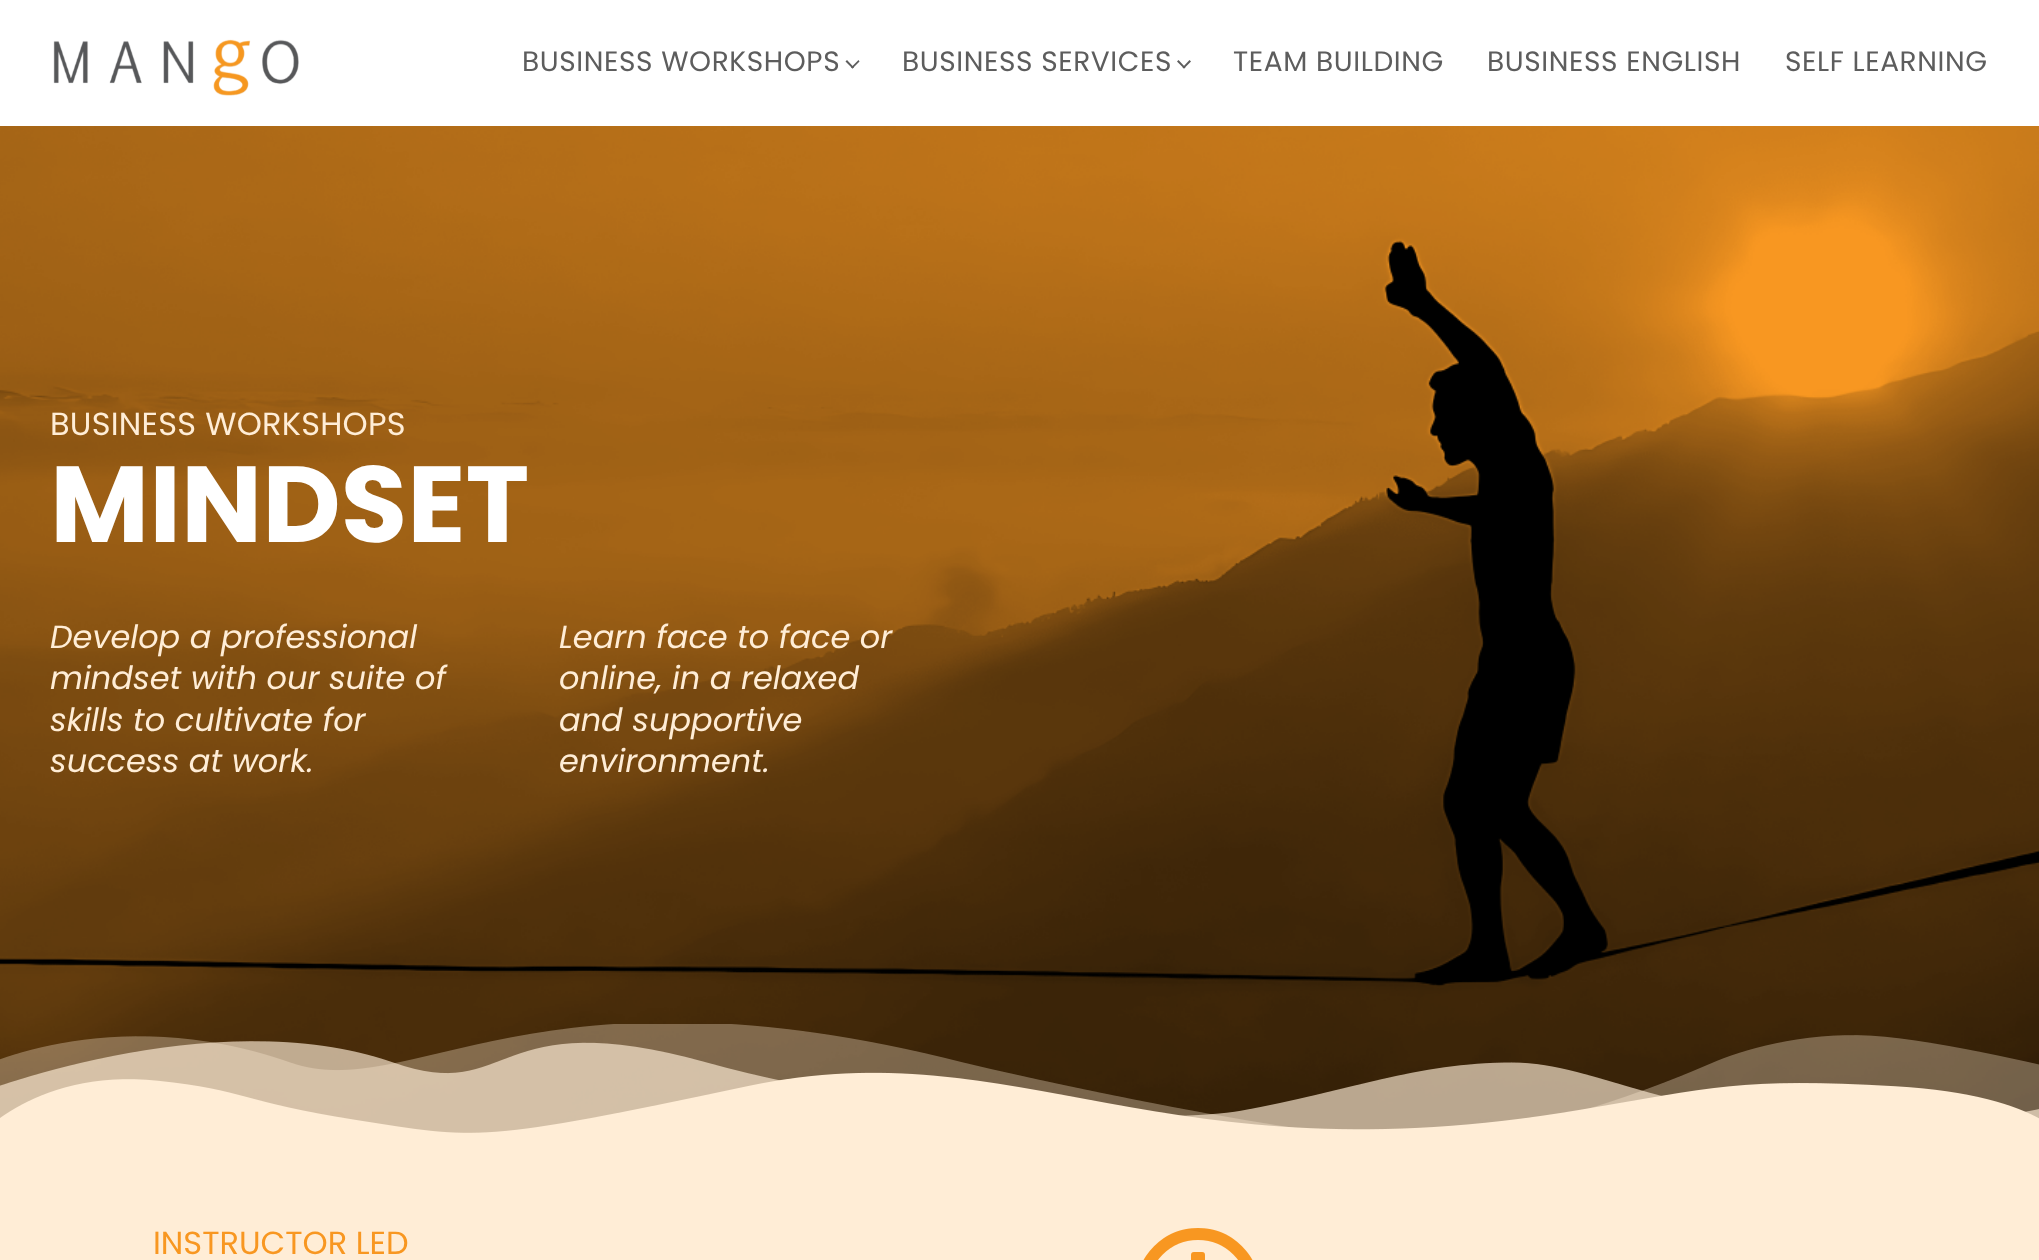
async function draw(canvas) {
	canvas.width = 2039;
	canvas.height = 1260;
	const c = canvas.getContext('2d');
	c.miterLimit = 4;
	c.fontKerning = 'normal';
	async function loadImage(src) {
		const img = new Image();
		img.src = src;
		await img.decode();
		return img;
	}

	c.fillStyle = '#fff';
	c.fillRect(0, 0, 2039, 1260);
	c.drawImage(await loadImage('img1.png'), 53, 39, 246, 57);
	c.letterSpacing = '0.6px';
	c.font = '28px Poppins';
	c.fillStyle = '#5d5d5d';
	c.fillText('BUSINESS WORKSHOPS', 522, 71);
	c.beginPath();
	c.moveTo(859.5, 61.5);
	c.lineTo(852.5, 68.5);
	c.lineTo(851, 67.5);
	c.lineTo(858.5, 60);
	c.closePath();
	c.fill();
	c.beginPath();
	c.moveTo(854, 67.5);
	c.lineTo(852.5, 68.5);
	c.lineTo(845.5, 61.5);
	c.lineTo(847, 60);
	c.closePath();
	c.fill();
	c.fillText('BUSINESS SERVICES', 902, 71);
	c.beginPath();
	c.moveTo(1191, 61.5);
	c.lineTo(1184, 68.5);
	c.lineTo(1182.5, 67.5);
	c.lineTo(1189.5, 60);
	c.closePath();
	c.fill();
	c.beginPath();
	c.moveTo(1185.5, 67.5);
	c.lineTo(1184, 68.5);
	c.lineTo(1177, 61.5);
	c.lineTo(1178.5, 60);
	c.closePath();
	c.fill();
	for (const [text, x, y] of [
		['TEAM BUILDING', 1233, 71],
		['BUSINESS ENGLISH', 1487, 71],
		['SELF LEARNING', 1785, 71],
	]) {
		c.fillText(text, x, y);
	}
	c.drawImage(await loadImage('img2.png'), 0, 126, 2039, 1007);
	c.letterSpacing = '0.25px';
	c.font = '32px Poppins';
	c.fillStyle = '#ffedd6';
	c.fillText('BUSINESS WORKSHOPS', 50, 435);
	c.letterSpacing = '0px';
	c.font = 'bold 108px Poppins';
	c.fillStyle = '#fff';
	c.fillText('MINDSET', 50, 542);
	c.font = 'italic 32px Poppins';
	c.fillStyle = '#ffedd6';
	for (const [text, x, y] of [
		['Develop a professional', 50, 648],
		['mindset with our suite of', 50, 689],
		['skills to cultivate for', 50, 731],
		['success at work.', 50, 772],
		['Learn face to face or', 559, 648],
		['online, in a relaxed', 559, 689],
		['and supportive', 559, 731],
		['environment.', 559, 772],
	]) {
		c.fillText(text, x, y);
	}
	c.drawImage(await loadImage('img3.png'), 0, 1024, 2039, 120);
	c.fillRect(0, 1144, 2039, 116);
	c.font = '32px Poppins';
	c.fillStyle = '#f89721';
	c.fillText('INSTRUCTOR LED', 153, 1254);
	c.drawImage(await loadImage('img4.png'), 1143, 1228, 110, 32);
}

draw(document.querySelector('canvas'));
